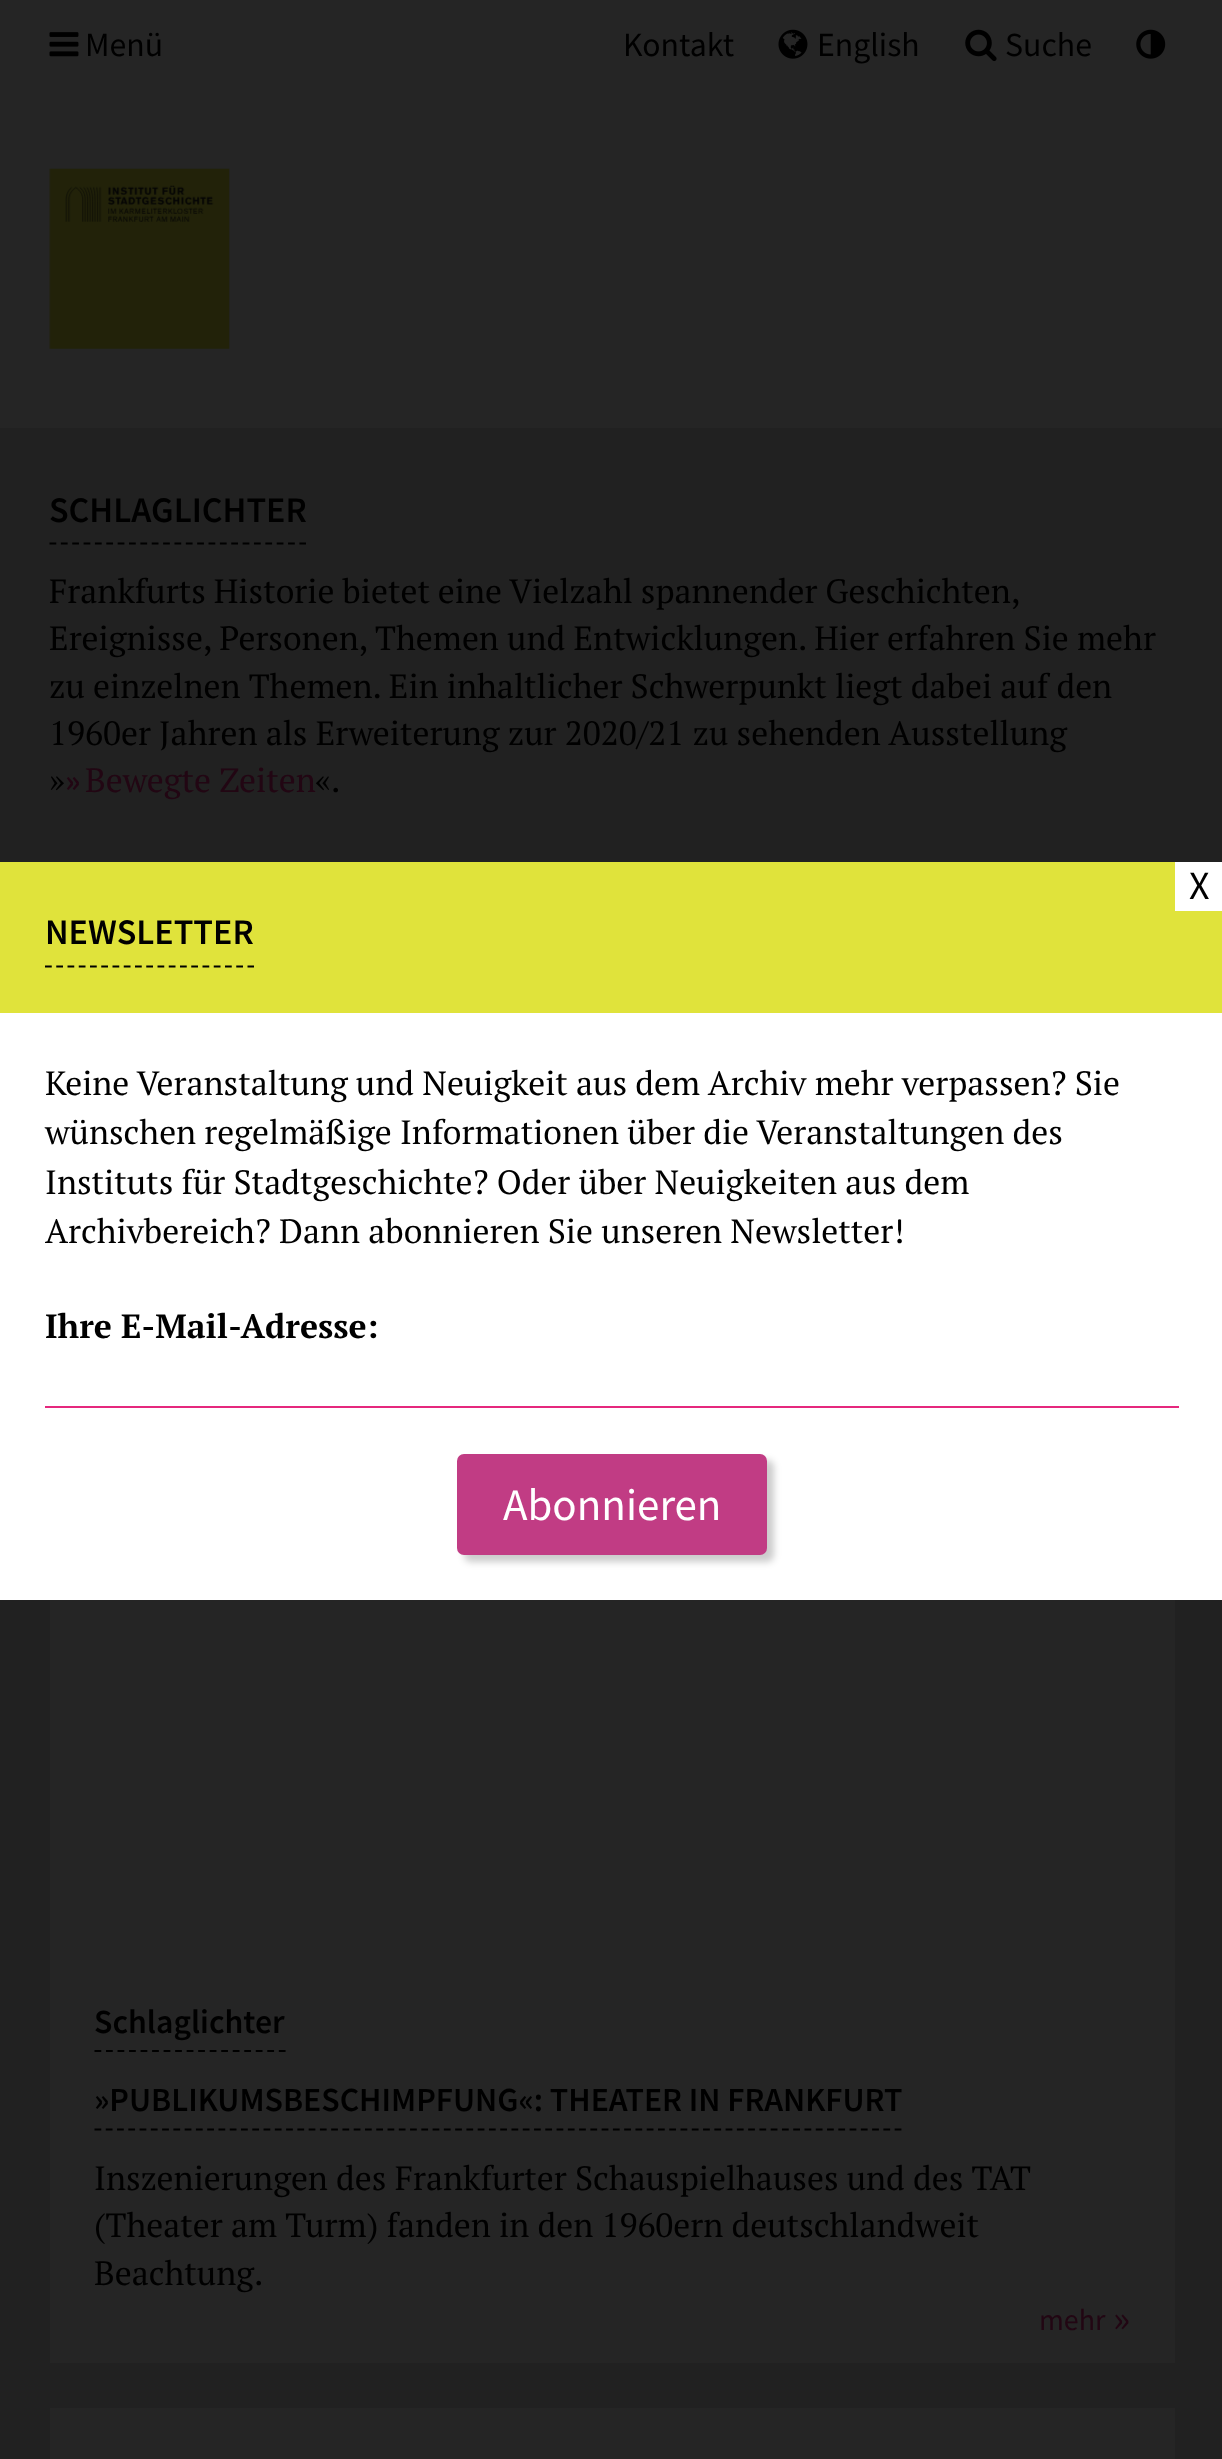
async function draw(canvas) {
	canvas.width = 1222;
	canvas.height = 2459;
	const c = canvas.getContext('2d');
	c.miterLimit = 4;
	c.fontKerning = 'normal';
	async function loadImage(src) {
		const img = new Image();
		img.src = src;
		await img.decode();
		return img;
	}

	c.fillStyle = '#212121';
	c.fillRect(0, 0, 1222, 2459);
	c.fillStyle = '#252525';
	c.fillRect(0, 0, 1222, 428);
	c.drawImage(await loadImage('img1.png'), 49, 32, 30, 25);
	c.font = '33.75px Source Sans Pro';
	c.fillStyle = '#000';
	c.fillText('Menü', 85, 56);
	c.fillText('Kontakt', 623, 56);
	c.drawImage(await loadImage('img2.png'), 778, 29, 30, 30);
	c.fillText('English', 817, 56);
	c.drawImage(await loadImage('img3.png'), 965, 29, 32, 33);
	c.fillText('Suche', 1005, 56);
	c.drawImage(await loadImage('img4.png'), 1136, 29, 30, 30);
	c.drawImage(await loadImage('img5.png'), 49, 168, 181, 181);
	c.beginPath();
	c.moveTo(49.5, 543.5);
	c.lineTo(306, 543.5);
	c.strokeStyle = '#000';
	c.lineWidth = 2.2;
	c.setLineDash([6.75, 4.61]);
	c.stroke();
	c.font = '600 36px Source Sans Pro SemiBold';
	c.fillText('SCHLAGLICHTER', 49, 522);
	c.wordSpacing = '-0.25px';
	c.font = '33.75px PT Serif';
	c.fillText('Frankfurts Historie bietet eine Vielzahl spannender Geschichten,', 49, 603);
	c.wordSpacing = '0px';
	for (const [text, x, y] of [
		['Ereignisse, Personen, Themen und Entwicklungen. Hier erfahren Sie mehr', 49, 650],
		['zu einzelnen Themen. Ein inhaltlicher Schwerpunkt liegt dabei auf den', 49, 698],
		['1960er Jahren als Erweiterung zur 2020/21 zu sehenden Ausstellung', 49, 745],
		['»', 49, 792],
	]) {
		c.fillText(text, x, y);
	}
	c.font = '600 33.75px Source Sans Pro SemiBold';
	c.fillStyle = '#220613';
	c.fillText('»', 65, 792);
	c.font = '33.75px PT Serif';
	c.fillText('Bewegte Zeiten', 85, 792);
	c.fillStyle = '#000';
	c.fillText('«.', 315, 792);
	c.fillStyle = '#252525';
	c.fillRect(50, 1600, 1125, 763);
	c.beginPath();
	c.moveTo(94.5, 2051);
	c.lineTo(286, 2051);
	c.setLineDash([6.75, 4.77]);
	c.stroke();
	c.font = '600 33.75px Source Sans Pro SemiBold';
	c.fillStyle = '#000';
	c.fillText('Schlaglichter', 94, 2033);
	c.beginPath();
	c.moveTo(94.5, 2129.5);
	c.lineTo(902, 2129.5);
	c.setLineDash([6.75, 4.52]);
	c.stroke();
	c.fillText('»PUBLIKUMSBESCHIMPFUNG«: THEATER IN FRANKFURT', 94, 2111);
	c.font = '33.75px PT Serif';
	for (const [text, x, y] of [
		['Inszenierungen des Frankfurter Schauspielhauses und des TAT', 94, 2190],
		['(Theater am Turm) fanden in den 1960ern deutschlandweit', 94, 2237],
		['Beachtung.', 94, 2285],
	]) {
		c.fillText(text, x, y);
	}
	c.font = '30px Source Sans Pro';
	c.fillStyle = '#220613';
	c.fillText('mehr', 1039, 2330);
	c.font = '40px Source Sans Pro';
	c.fillText('»', 1113, 2332);
	for (const [x, y, w, h, color] of [
		[50, 2408, 1125, 51, '#252525'],
		[0, 1013, 1222, 587, '#fff'],
		[0, 862, 1222, 151, '#e0e33b'],
		[1175, 862, 47, 49, '#fff'],
	]) {
		c.fillStyle = color;
		c.fillRect(x, y, w, h);
	}
	c.fillStyle = '#000';
	c.fillText('X', 1189, 899);
	c.beginPath();
	c.moveTo(45, 966.5);
	c.lineTo(254, 966.5);
	c.setLineDash([6.75, 4.5]);
	c.stroke();
	c.font = '600 36px Source Sans Pro SemiBold';
	c.fillText('NEWSLETTER', 45, 944);
	c.font = '33.75px PT Serif';
	for (const [text, x, y] of [
		['Keine Veranstaltung und Neuigkeit aus dem Archiv mehr verpassen? Sie', 45, 1095],
		['wünschen regelmäßige Informationen über die Veranstaltungen des', 45, 1144],
		['Instituts für Stadtgeschichte? Oder über Neuigkeiten aus dem', 45, 1194],
		['Archivbereich? Dann abonnieren Sie unseren Newsletter!', 45, 1243],
	]) {
		c.fillText(text, x, y);
	}
	c.font = 'bold 33.75px PT Serif';
	c.fillText('Ihre E-Mail-Adresse:', 45, 1338);
	c.fillStyle = '#e5287d';
	c.fillRect(45, 1406, 1134, 2);
	c.fillStyle = '#00000033';
	c.filter = 'blur(3.5px)';
	c.beginPath();
	c.roundRect(464, 1460, 310, 102, 7);
	c.fill();
	c.filter = 'none';
	c.fillStyle = '#c13c84';
	c.beginPath();
	c.roundRect(457, 1454, 310, 101, 7);
	c.fill();
	c.font = '45px Source Sans Pro';
	c.fillStyle = '#fff';
	c.fillText('Abonnieren', 503, 1520);
}

draw(document.querySelector('canvas'));
